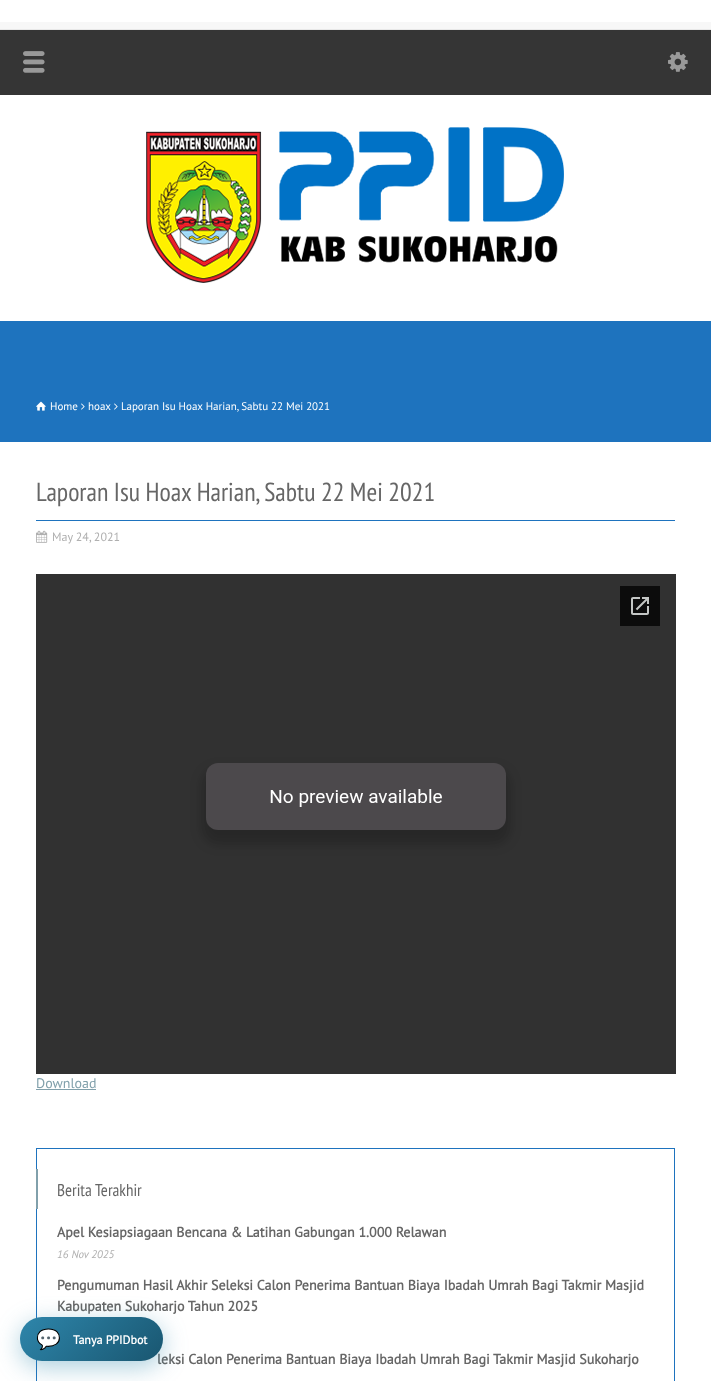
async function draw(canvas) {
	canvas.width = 711;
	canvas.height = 1381;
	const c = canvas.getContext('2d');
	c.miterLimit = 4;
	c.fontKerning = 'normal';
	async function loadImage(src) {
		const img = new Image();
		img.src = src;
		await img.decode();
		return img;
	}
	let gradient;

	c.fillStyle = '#fff';
	c.fillRect(0, 0, 711, 1381);
	c.strokeStyle = '#f0f0f0';
	c.strokeRect(-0.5, 29.5, 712, 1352);
	c.strokeStyle = '#00000008';
	c.lineWidth = 8;
	c.strokeRect(-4, 26, 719, 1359);
	c.fillStyle = '#353535';
	c.fillRect(0, 30, 711, 65);
	c.drawImage(await loadImage('img1.png'), 23, 51, 22, 22);
	c.drawImage(await loadImage('img2.png'), 668, 52, 20, 20);
	c.fillStyle = '#1e73be';
	c.fillRect(0, 321, 711, 121);
	c.drawImage(await loadImage('img3.png'), 36, 401, 10, 10);
	c.font = '11px PT Sans';
	c.fillStyle = '#fff';
	c.fillText('Home', 50, 410);
	c.drawImage(await loadImage('img4.png'), 81, 403, 4, 7);
	c.fillText('hoax', 88, 410);
	c.drawImage(await loadImage('img4.png'), 114, 403, 4, 7);
	c.fillText('Laporan Isu Hoax Harian, Sabtu 22 Mei 2021', 121, 410);
	c.font = '26px PT Sans Narrow';
	c.fillStyle = '#666';
	c.fillText('Laporan Isu Hoax Harian, Sabtu 22 Mei 2021', 36, 501);
	c.fillStyle = '#1e73be';
	c.fillRect(36, 520, 639, 1);
	c.drawImage(await loadImage('img5.png'), 36, 530, 12, 13);
	c.font = '12px PT Sans';
	c.fillStyle = '#afafaf';
	c.fillText('May 24, 2021', 52, 541);
	c.drawImage(await loadImage('img6.png'), 36, 574, 640, 500);
	c.font = '14px PT Sans';
	c.fillStyle = '#81a0ab';
	c.fillText('Download', 36, 1088);
	c.fillRect(36, 1089, 60, 1);
	c.strokeStyle = '#1e73be';
	c.lineWidth = 1;
	c.strokeRect(36.5, 1148.5, 638, 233);
	c.fillRect(36, 1169, 2, 40);
	c.font = '17px PT Sans Narrow';
	c.fillStyle = '#666';
	c.fillText('Berita Terakhir', 57, 1196);
	c.font = 'bold 14px PT Sans';
	c.fillText('Apel Kesiapsiagaan Bencana & Latihan Gabungan 1.000 Relawan', 57, 1237);
	c.font = 'italic 11px PT Sans';
	c.fillStyle = '#afafaf';
	c.fillText('16 Nov 2025', 57, 1258);
	c.font = 'bold 14px PT Sans';
	c.fillStyle = '#666';
	for (const [text, x, y] of [
		['Pengumuman Hasil Akhir Seleksi Calon Penerima Bantuan Biaya Ibadah Umrah Bagi Takmir Masjid', 57, 1290],
		['Kabupaten Sukoharjo Tahun 2025', 57, 1311],
		['leksi Calon Penerima Bantuan Biaya Ibadah Umrah Bagi Takmir Masjid Sukoharjo', 157, 1364],
	]) {
		c.fillText(text, x, y);
	}
	c.drawImage(await loadImage('img7.png'), 146, 127, 418, 156);
	c.fillStyle = '#2e86ab66';
	c.filter = 'blur(12.5px)';
	c.beginPath();
	c.roundRect(20, 1323, 143, 44, 22);
	c.fill();
	c.filter = 'none';
	gradient = c.createLinearGradient(45, 1292, 138, 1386);
	gradient.addColorStop(0, '#2e86ab');
	gradient.addColorStop(1, '#195670');
	c.fillStyle = gradient;
	c.beginPath();
	c.roundRect(20, 1317, 143, 44, 22);
	c.fill();
	c.font = 'bold 20px Noto Color Emoji';
	c.fillStyle = '#fff';
	c.fillText('💬', 36, 1346);
	c.font = 'bold 12px PT Sans';
	c.fillText('Tanya PPIDbot', 73, 1344);
}

draw(document.querySelector('canvas'));
